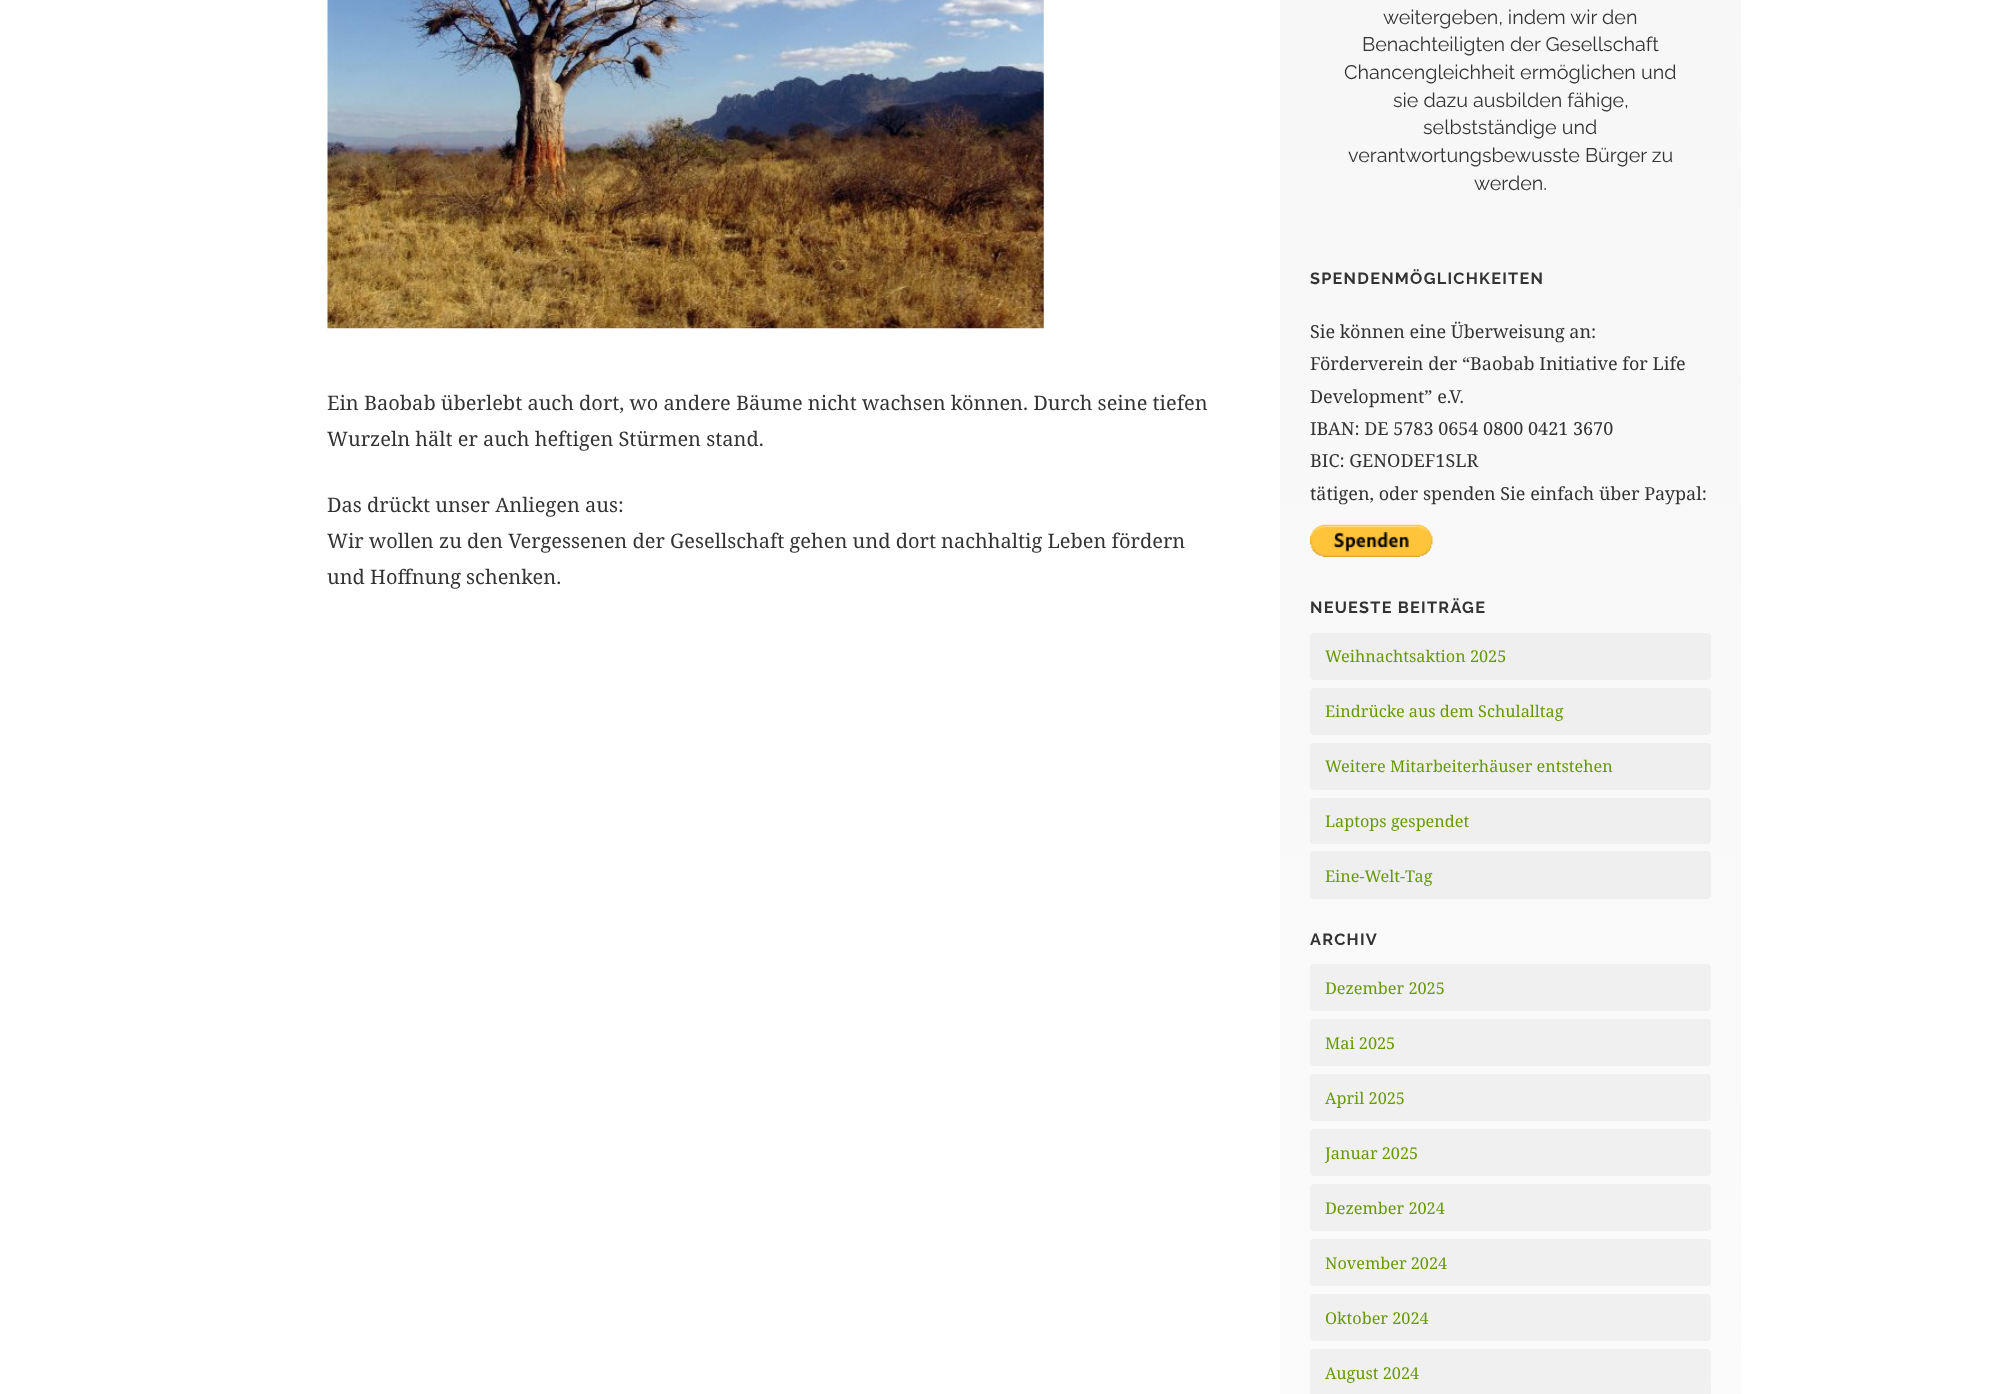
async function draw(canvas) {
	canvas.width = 2007;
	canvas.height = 1394;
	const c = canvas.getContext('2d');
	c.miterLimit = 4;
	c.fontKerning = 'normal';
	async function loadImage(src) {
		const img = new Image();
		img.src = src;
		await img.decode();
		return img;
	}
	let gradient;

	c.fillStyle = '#fff';
	c.fillRect(0, 0, 2007, 1394);
	c.drawImage(await loadImage('img1.png'), 327, 0, 717, 329);
	c.font = '20px Noto Serif';
	c.fillStyle = '#333';
	for (const [text, x, y] of [
		['Ein Baobab überlebt auch dort, wo andere Bäume nicht wachsen können. Durch seine tiefen', 327, 410],
		['Wurzeln hält er auch heftigen Stürmen stand.', 327, 446],
		['Das drückt unser Anliegen aus:', 327, 512],
		['Wir wollen zu den Vergessenen der Gesellschaft gehen und dort nachhaltig Leben fördern', 327, 548],
		['und Hoffnung schenken.', 327, 584],
	]) {
		c.fillText(text, x, y);
	}
	gradient = c.createLinearGradient(1511, 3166, 1511, -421);
	gradient.addColorStop(0, '#fff');
	gradient.addColorStop(1, '#f6f6f6');
	c.fillStyle = gradient;
	c.fillRect(1280, 0, 461, 1394);
	c.font = '19.75px Raleway';
	c.fillStyle = '#333';
	for (const [text, x, y] of [
		['weitergeben, indem wir den', 1383, 24],
		['Benachteiligten der Gesellschaft', 1362, 51],
		['Chancengleichheit ermöglichen und', 1344, 79],
		['sie dazu ausbilden fähige,', 1393, 107],
		['selbstständige und', 1423, 134],
		['verantwortungsbewusste Bürger zu', 1348, 162],
		['werden.', 1474, 190],
	]) {
		c.fillText(text, x, y);
	}
	c.letterSpacing = '1.25px';
	c.font = 'bold 16.25px Raleway';
	c.fillText('SPENDENMÖGLICHKEITEN', 1310, 284);
	c.letterSpacing = '0px';
	c.font = '18px Noto Serif';
	for (const [text, x, y] of [
		['Sie können eine Überweisung an:', 1310, 338],
		['Förderverein der “Baobab Initiative for Life', 1310, 370],
		['Development” e.V.', 1310, 403],
		['IBAN: DE 5783 0654 0800 0421 3670', 1310, 435],
		['BIC: GENODEF1SLR', 1310, 467],
		['tätigen, oder spenden Sie einfach über Paypal:', 1310, 500],
	]) {
		c.fillText(text, x, y);
	}
	c.drawImage(await loadImage('img2.png'), 1310, 524, 123, 33);
	c.letterSpacing = '1.25px';
	c.font = 'bold 16.25px Raleway';
	c.fillText('NEUESTE BEITRÄGE', 1310, 613);
	c.fillStyle = '#efefef';
	c.beginPath();
	c.roundRect(1310, 633, 401, 47, 4);
	c.fill();
	c.letterSpacing = '0px';
	c.font = '16.25px Noto Serif';
	c.fillStyle = '#690';
	c.fillText('Weihnachtsaktion 2025', 1325, 662);
	c.fillStyle = '#efefef';
	c.beginPath();
	c.roundRect(1310, 688, 401, 47, 4);
	c.fill();
	c.fillStyle = '#690';
	c.fillText('Eindrücke aus dem Schulalltag', 1325, 717);
	c.fillStyle = '#efefef';
	c.beginPath();
	c.roundRect(1310, 743, 401, 47, 4);
	c.fill();
	c.fillStyle = '#690';
	c.fillText('Weitere Mitarbeiterhäuser entstehen', 1325, 772);
	c.fillStyle = '#efefef';
	c.beginPath();
	c.roundRect(1310, 798, 401, 46, 4);
	c.fill();
	c.fillStyle = '#690';
	c.fillText('Laptops gespendet', 1325, 827);
	c.fillStyle = '#efefef';
	c.beginPath();
	c.roundRect(1310, 851, 401, 48, 4);
	c.fill();
	c.fillStyle = '#690';
	c.fillText('Eine-Welt-Tag', 1325, 882);
	c.letterSpacing = '1.25px';
	c.font = 'bold 16.25px Raleway';
	c.fillStyle = '#333';
	c.fillText('ARCHIV', 1310, 945);
	c.fillStyle = '#f0f0f0';
	c.beginPath();
	c.roundRect(1310, 964, 401, 47, 4);
	c.fill();
	c.letterSpacing = '0px';
	c.font = '16.25px Noto Serif';
	c.fillStyle = '#690';
	c.fillText('Dezember 2025', 1325, 994);
	c.fillStyle = '#f0f0f0';
	c.beginPath();
	c.roundRect(1310, 1019, 401, 47, 4);
	c.fill();
	c.fillStyle = '#690';
	c.fillText('Mai 2025', 1325, 1049);
	c.fillStyle = '#f0f0f0';
	c.beginPath();
	c.roundRect(1310, 1074, 401, 47, 4);
	c.fill();
	c.fillStyle = '#690';
	c.fillText('April 2025', 1325, 1104);
	c.fillStyle = '#f0f0f0';
	c.beginPath();
	c.roundRect(1310, 1129, 401, 47, 4);
	c.fill();
	c.fillStyle = '#690';
	c.fillText('Januar 2025', 1325, 1159);
	c.fillStyle = '#f0f0f0';
	c.beginPath();
	c.roundRect(1310, 1184, 401, 47, 4);
	c.fill();
	c.fillStyle = '#690';
	c.fillText('Dezember 2024', 1325, 1214);
	c.fillStyle = '#f0f0f0';
	c.beginPath();
	c.roundRect(1310, 1239, 401, 47, 4);
	c.fill();
	c.fillStyle = '#690';
	c.fillText('November 2024', 1325, 1269);
	c.fillStyle = '#f0f0f0';
	c.beginPath();
	c.roundRect(1310, 1294, 401, 47, 4);
	c.fill();
	c.fillStyle = '#690';
	c.fillText('Oktober 2024', 1325, 1324);
	c.fillStyle = '#f0f0f0';
	c.beginPath();
	c.roundRect(1310, 1349, 401, 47, 4);
	c.fill();
	c.fillStyle = '#690';
	c.fillText('August 2024', 1325, 1379);
}

draw(document.querySelector('canvas'));
